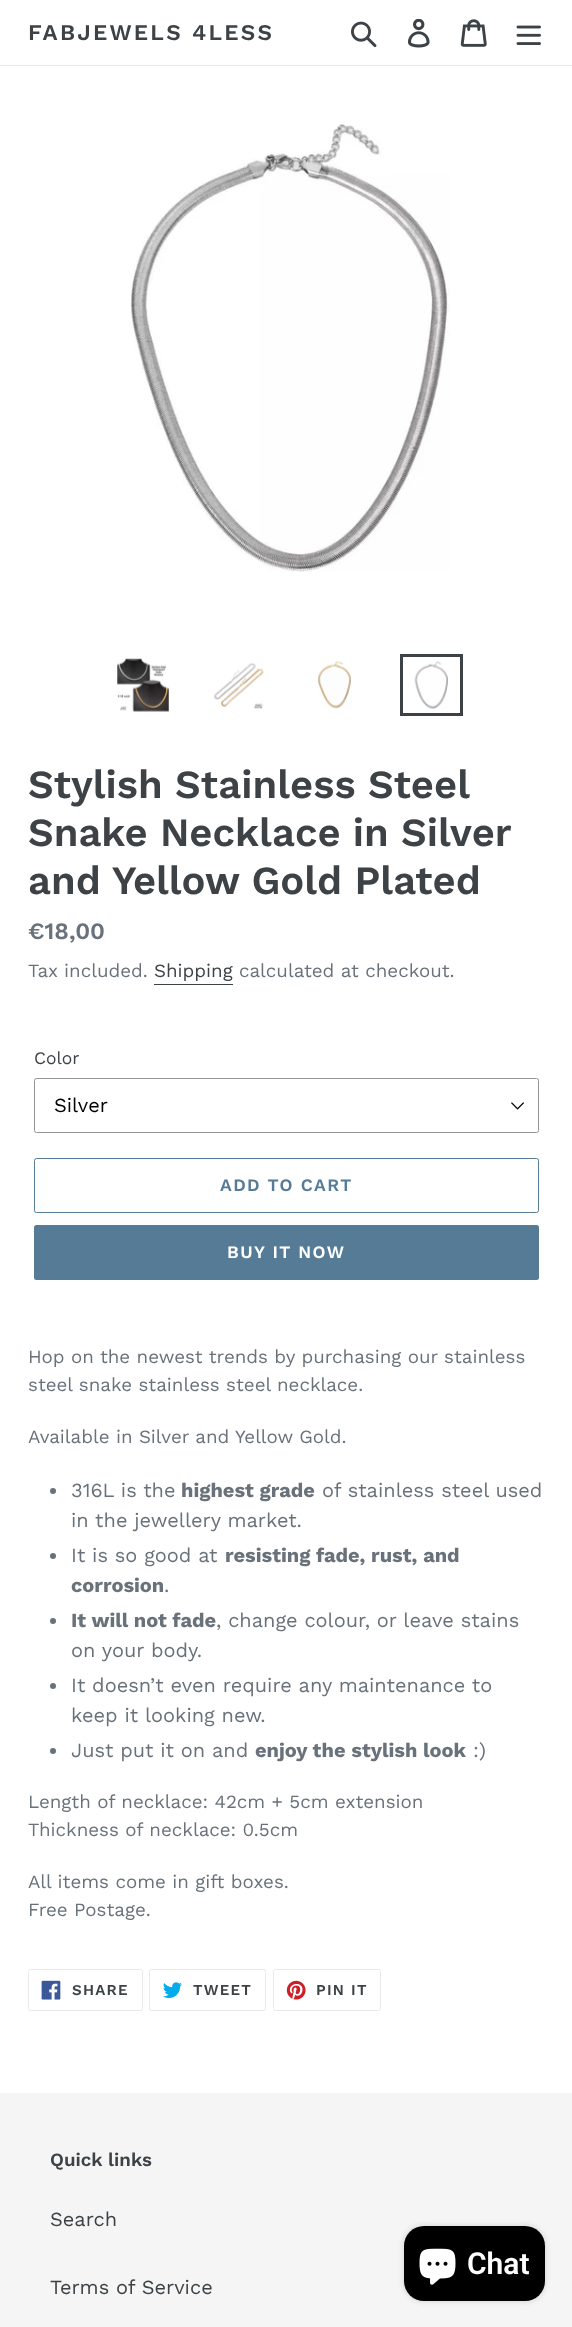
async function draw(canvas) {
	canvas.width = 572;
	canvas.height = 2327;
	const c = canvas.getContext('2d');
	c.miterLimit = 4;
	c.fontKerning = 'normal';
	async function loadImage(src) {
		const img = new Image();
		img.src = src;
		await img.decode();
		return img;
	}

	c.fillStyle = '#fff';
	c.fillRect(0, 0, 572, 2327);
	c.fillStyle = '#e8e9eb';
	c.fillRect(0, 65, 572, 1);
	c.letterSpacing = '2.25px';
	c.font = '600 22.5px Work Sans';
	c.fillStyle = '#3d4246';
	c.fillText('FABJEWELS 4LESS', 28, 40);
	c.drawImage(await loadImage('img1.png'), 351, 21, 26, 27);
	c.drawImage(await loadImage('img2.png'), 408, 19, 22, 29);
	c.drawImage(await loadImage('img3.png'), 460, 19, 27, 28);
	c.drawImage(await loadImage('img4.png'), 516, 25, 25, 20);
	c.drawImage(await loadImage('img5.png'), 130, 122, 320, 450);
	c.drawImage(await loadImage('img6.png'), 117, 658, 52, 54);
	c.drawImage(await loadImage('img7.png'), 214, 663, 50, 46);
	c.drawImage(await loadImage('img8.png'), 318, 661, 34, 48);
	c.strokeStyle = '#3d4246';
	c.lineWidth = 3;
	c.strokeRect(401.5, 655.5, 60, 59);
	c.drawImage(await loadImage('img9.png'), 414, 661, 34, 48);
	c.letterSpacing = '0px';
	c.font = '600 40px Work Sans';
	for (const [text, x, y] of [
		['Stylish Stainless Steel', 28, 798],
		['Snake Necklace in Silver', 28, 846],
		['and Yellow Gold Plated', 28, 894],
	]) {
		c.fillText(text, x, y);
	}
	c.font = '600 23.5px Work Sans';
	c.fillStyle = '#69727b';
	c.fillText('€18,00', 28, 939);
	c.font = '18.75px Work Sans';
	c.fillText('Tax included.', 28, 977);
	c.fillStyle = '#3d4246';
	c.fillText('Shipping', 154, 977);
	c.fillRect(154, 984, 79, 1);
	c.fillStyle = '#69727b';
	c.fillText('calculated at checkout.', 239, 977);
	c.font = '17.5px Work Sans';
	c.fillStyle = '#3d4246';
	c.fillText('Color', 34, 1064);
	c.drawImage(await loadImage('img10.png'), 511, 1102, 13, 8);
	c.beginPath();
	c.roundRect(34.5, 1078.5, 504, 54, 2);
	c.strokeStyle = '#949494';
	c.lineWidth = 1;
	c.stroke();
	c.font = '20px Work Sans';
	c.fillStyle = '#000';
	c.fillText('Silver', 54, 1112);
	c.beginPath();
	c.roundRect(34.5, 1158.5, 504, 54, 2);
	c.strokeStyle = '#557b97';
	c.stroke();
	c.letterSpacing = '1.4px';
	c.font = '600 17.5px Work Sans';
	c.fillStyle = '#557b97';
	c.fillText('ADD TO CART', 220, 1191);
	c.beginPath();
	c.roundRect(34, 1225, 505, 55, 2.5);
	c.fill();
	c.fillStyle = '#fff';
	c.fillText('BUY IT NOW', 227, 1258);
	c.letterSpacing = '0px';
	c.font = '18.75px Work Sans';
	c.fillStyle = '#69727b';
	for (const [text, x, y] of [
		['Hop on the newest trends by purchasing our stainless', 28, 1363],
		['steel snake stainless steel necklace.', 28, 1391],
		['Available in Silver and Yellow Gold.', 28, 1443],
	]) {
		c.fillText(text, x, y);
	}
	c.beginPath();
	c.arc(53, 1491, 3, 0, 2 * Math.PI);
	c.fill();
	c.font = '20px Work Sans';
	c.fillText('316L is the', 71, 1497);
	c.font = 'bold 20px Work Sans';
	c.fillText('highest grade', 181, 1497);
	c.font = '20px Work Sans';
	c.fillText('of stainless steel used', 322, 1497);
	c.fillText('in the jewellery market.', 71, 1527);
	c.beginPath();
	c.arc(53, 1556, 3, 0, 2 * Math.PI);
	c.fill();
	c.fillText('It is so good at', 71, 1562);
	c.font = 'bold 20px Work Sans';
	c.fillText('resisting fade, rust, and', 225, 1562);
	c.fillText('corrosion', 71, 1592);
	c.font = '20px Work Sans';
	c.fillText('.', 164, 1592);
	c.beginPath();
	c.arc(53, 1621, 3, 0, 2 * Math.PI);
	c.fill();
	c.font = 'bold 20px Work Sans';
	c.fillText('It will not fade', 71, 1627);
	c.font = '20px Work Sans';
	c.fillText(', change colour, or leave stains', 216, 1627);
	c.fillText('on your body.', 71, 1657);
	c.beginPath();
	c.arc(53, 1686, 3, 0, 2 * Math.PI);
	c.fill();
	c.fillText('It doesn’t even require any maintenance to', 71, 1692);
	c.fillText('keep it looking new.', 71, 1722);
	c.beginPath();
	c.arc(53, 1751, 3, 0, 2 * Math.PI);
	c.fill();
	c.fillText('Just put it on and', 71, 1757);
	c.font = 'bold 20px Work Sans';
	c.fillText('enjoy the stylish look', 255, 1757);
	c.font = '20px Work Sans';
	c.fillText(':)', 473, 1757);
	c.font = '18.75px Work Sans';
	for (const [text, x, y] of [
		['Length of necklace: 42cm + 5cm extension', 28, 1808],
		['Thickness of necklace: 0.5cm', 28, 1836],
		['All items come in gift boxes.', 28, 1888],
		['Free Postage.', 28, 1916],
	]) {
		c.fillText(text, x, y);
	}
	c.beginPath();
	c.roundRect(28.5, 1969.5, 114, 41, 2);
	c.strokeStyle = '#e8e9eb';
	c.stroke();
	c.drawImage(await loadImage('img11.png'), 41, 1980, 20, 20);
	c.letterSpacing = '1.25px';
	c.font = '600 15px Work Sans';
	c.fillStyle = '#3d4246';
	c.fillText('SHARE', 72, 1995);
	c.beginPath();
	c.roundRect(149.5, 1969.5, 116, 41, 2);
	c.stroke();
	c.drawImage(await loadImage('img12.png'), 163, 1982, 19, 16);
	c.fillText('TWEET', 193, 1995);
	c.beginPath();
	c.roundRect(273.5, 1969.5, 107, 41, 2);
	c.stroke();
	c.drawImage(await loadImage('img13.png'), 286, 1980, 20, 20);
	c.fillText('PIN IT', 316, 1995);
	c.fillStyle = '#f5f5f5';
	c.fillRect(0, 2093, 572, 234);
	c.letterSpacing = '0px';
	c.font = '600 18.75px Work Sans';
	c.fillStyle = '#3d4246';
	c.fillText('Quick links', 50, 2166);
	c.font = '20px Work Sans';
	c.fillText('Search', 50, 2226);
	c.fillText('Terms of Service', 50, 2294);
	c.fillStyle = '#00000026';
	c.filter = 'blur(3px)';
	c.beginPath();
	c.roundRect(404, 2226, 141, 75, 20);
	c.fill();
	c.filter = 'none';
	c.fillStyle = '#000';
	c.beginPath();
	c.roundRect(404, 2226, 141, 75, 20);
	c.fill();
	c.drawImage(await loadImage('img14.png'), 419, 2248, 37, 37);
	c.font = '600 30px Roboto';
	c.fillStyle = '#fff';
	c.fillText('Chat', 467, 2274);
}

draw(document.querySelector('canvas'));
